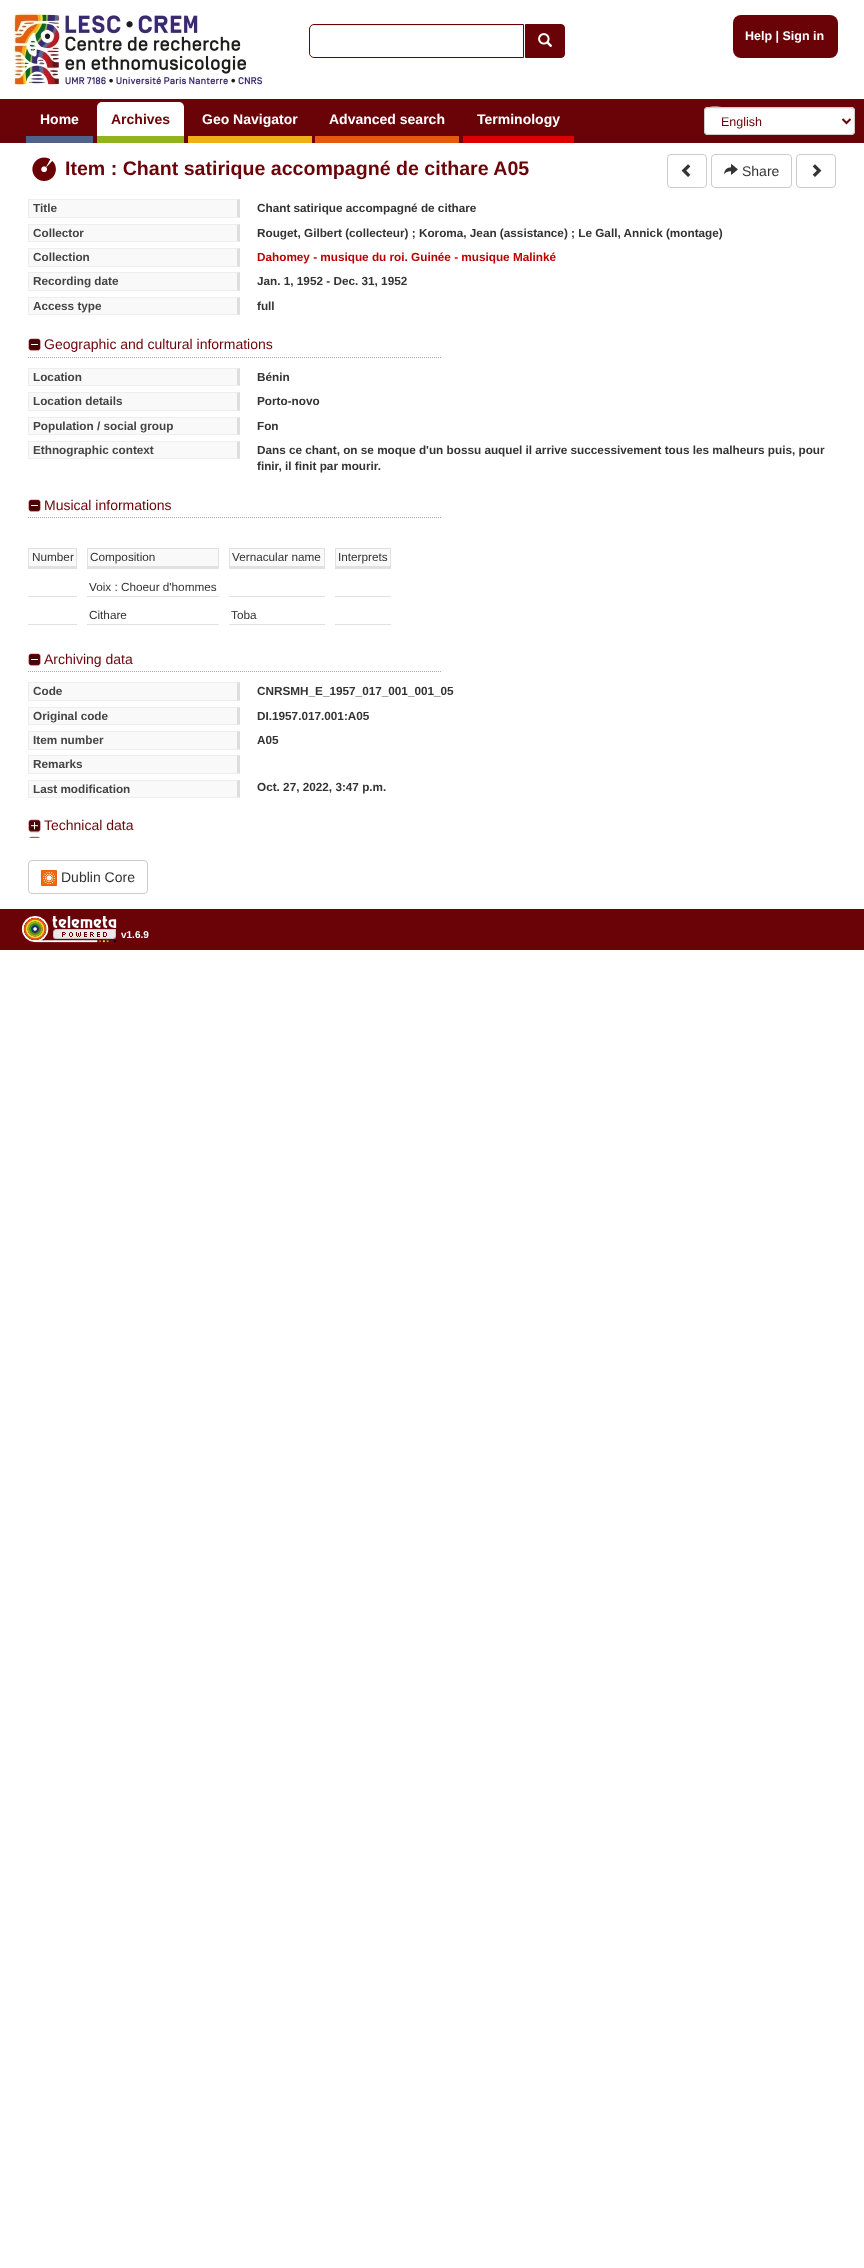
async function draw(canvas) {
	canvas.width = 864;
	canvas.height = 2268;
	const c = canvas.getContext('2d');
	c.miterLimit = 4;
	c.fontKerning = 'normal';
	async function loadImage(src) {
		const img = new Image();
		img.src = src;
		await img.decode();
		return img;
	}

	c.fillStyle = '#fff';
	c.fillRect(0, 0, 864, 2268);
	c.drawImage(await loadImage('img1.png'), 13, 13, 250, 73);
	c.fillStyle = '#ececec';
	c.beginPath();
	c.moveTo(314, 26);
	c.lineTo(523, 26);
	c.lineTo(523, 25);
	c.lineTo(312, 25);
	c.bezierCurveTo(310, 26, 310, 28, 310, 30);
	c.bezierCurveTo(310, 28, 312, 26, 314, 26);
	c.closePath();
	c.fill();
	c.beginPath();
	c.roundRect(309.5, 24.5, 214, 33, [4.5, 0, 0, 4.5]);
	c.strokeStyle = '#6a0307';
	c.stroke();
	c.fillStyle = '#6a0307';
	c.beginPath();
	c.roundRect(525.5, 24.5, 39, 33, [0, 3.5, 3.5, 0]);
	c.fill();
	c.stroke();
	c.drawImage(await loadImage('img2.png'), 538, 33, 15, 14);
	c.beginPath();
	c.roundRect(733, 15, 105, 43, 8);
	c.fill();
	c.font = 'bold 12.5px Liberation Sans';
	c.fillStyle = '#fff';
	c.fillText('Help | Sign in', 745, 40);
	c.fillStyle = '#6a0307';
	c.fillRect(0, 99, 864, 44);
	c.fillStyle = '#4f628a';
	c.fillRect(26, 136, 67, 7);
	c.font = 'bold 14px Liberation Sans';
	c.fillStyle = '#fff';
	c.fillText('Home', 40, 124);
	c.beginPath();
	c.roundRect(97, 102, 87, 41, [5, 5, 0, 0]);
	c.fill();
	c.fillStyle = '#92b220';
	c.fillRect(97, 136, 87, 7);
	c.fillStyle = '#6a0307';
	c.fillText('Archives', 111, 124);
	c.fillStyle = '#f3ad17';
	c.fillRect(188, 136, 124, 7);
	c.fillStyle = '#fff';
	c.fillText('Geo Navigator', 202, 124);
	c.fillStyle = '#e65911';
	c.fillRect(315, 136, 144, 7);
	c.fillStyle = '#fff';
	c.fillText('Advanced search', 329, 124);
	c.fillStyle = '#d00';
	c.fillRect(463, 136, 111, 7);
	c.fillStyle = '#fff';
	c.fillText('Terminology', 477, 124);
	c.beginPath();
	c.roundRect(704, 107, 151, 28, 4);
	c.fill();
	c.fillStyle = '#ececec';
	c.beginPath();
	c.moveTo(708, 109);
	c.lineTo(851, 109);
	c.bezierCurveTo(853, 109, 854, 110, 854, 112);
	c.bezierCurveTo(854, 110, 854, 109, 852, 108);
	c.lineTo(732, 108);
	c.bezierCurveTo(724, 108, 705, 103, 705, 112);
	c.bezierCurveTo(705, 110, 706, 109, 708, 109);
	c.closePath();
	c.fill();
	c.beginPath();
	c.roundRect(704.5, 107.5, 150, 27, 3.5);
	c.strokeStyle = '#ccc';
	c.stroke();
	c.beginPath();
	c.moveTo(842.5, 119);
	c.lineTo(846.5, 123);
	c.lineTo(850.5, 119);
	c.strokeStyle = '#6a0307';
	c.lineWidth = 2;
	c.stroke();
	c.font = '12.5px Liberation Sans';
	c.fillStyle = '#6a0307';
	c.fillText('English', 721, 126);
	c.drawImage(await loadImage('img3.png'), 32, 157, 24, 24);
	c.font = 'bold 19.6px Liberation Sans';
	c.fillText('Item : Chant satirique accompagné de cithare A05', 65, 175);
	c.beginPath();
	c.roundRect(667.5, 154.5, 39, 33, 3.5);
	c.strokeStyle = '#ccc';
	c.lineWidth = 1;
	c.stroke();
	c.drawImage(await loadImage('img4.png'), 681, 164, 10, 13);
	c.beginPath();
	c.roundRect(711.5, 154.5, 80, 33, 3.5);
	c.stroke();
	c.drawImage(await loadImage('img5.png'), 724, 164, 14, 11);
	c.font = '14px Liberation Sans';
	c.fillStyle = '#333';
	c.fillText('Share', 742, 176);
	c.beginPath();
	c.roundRect(796.5, 154.5, 39, 33, 3.5);
	c.stroke();
	c.drawImage(await loadImage('img6.png'), 812, 164, 10, 13);
	c.fillStyle = '#f9f9f9';
	c.fillRect(29, 200, 208, 17);
	c.fillStyle = '#eee';
	c.beginPath();
	c.moveTo(28, 199);
	c.lineTo(240, 199);
	c.lineTo(237, 200);
	c.lineTo(29, 200);
	c.closePath();
	c.fill();
	c.fillStyle = '#ddd';
	c.beginPath();
	c.moveTo(240, 199);
	c.lineTo(240, 218);
	c.lineTo(237, 217);
	c.lineTo(237, 200);
	c.closePath();
	c.fill();
	c.fillStyle = '#eee';
	c.beginPath();
	c.moveTo(240, 218);
	c.lineTo(28, 218);
	c.lineTo(29, 217);
	c.lineTo(237, 217);
	c.closePath();
	c.fill();
	c.fillRect(28, 199, 1, 19);
	c.font = 'bold 11.75px Liberation Sans';
	c.fillStyle = '#444';
	c.fillText('Title', 33, 212);
	c.fillStyle = '#333';
	c.fillText('Chant satirique accompagné de cithare', 257, 212);
	c.fillStyle = '#f9f9f9';
	c.fillRect(29, 225, 208, 16);
	c.fillStyle = '#eee';
	c.beginPath();
	c.moveTo(28, 224);
	c.lineTo(240, 224);
	c.lineTo(237, 225);
	c.lineTo(29, 225);
	c.closePath();
	c.fill();
	c.fillStyle = '#ddd';
	c.beginPath();
	c.moveTo(240, 224);
	c.lineTo(240, 242);
	c.lineTo(237, 241);
	c.lineTo(237, 225);
	c.closePath();
	c.fill();
	c.fillStyle = '#eee';
	c.beginPath();
	c.moveTo(240, 242);
	c.lineTo(28, 242);
	c.lineTo(29, 241);
	c.lineTo(237, 241);
	c.closePath();
	c.fill();
	c.fillRect(28, 224, 1, 18);
	c.fillStyle = '#444';
	c.fillText('Collector', 33, 237);
	c.fillStyle = '#333';
	c.fillText('Rouget, Gilbert (collecteur) ; Koroma, Jean (assistance) ; Le Gall, Annick (montage)', 257, 237);
	c.fillStyle = '#f9f9f9';
	c.fillRect(29, 249, 208, 17);
	c.fillStyle = '#eee';
	c.beginPath();
	c.moveTo(28, 248);
	c.lineTo(240, 248);
	c.lineTo(237, 249);
	c.lineTo(29, 249);
	c.closePath();
	c.fill();
	c.fillStyle = '#ddd';
	c.beginPath();
	c.moveTo(240, 248);
	c.lineTo(240, 267);
	c.lineTo(237, 266);
	c.lineTo(237, 249);
	c.closePath();
	c.fill();
	c.fillStyle = '#eee';
	c.beginPath();
	c.moveTo(240, 267);
	c.lineTo(28, 267);
	c.lineTo(29, 266);
	c.lineTo(237, 266);
	c.closePath();
	c.fill();
	c.fillRect(28, 248, 1, 19);
	c.fillStyle = '#444';
	c.fillText('Collection', 33, 261);
	c.fillStyle = '#b00';
	c.fillText('Dahomey - musique du roi. Guinée - musique Malinké', 257, 261);
	c.fillStyle = '#f9f9f9';
	c.fillRect(29, 273, 208, 17);
	c.fillStyle = '#eee';
	c.beginPath();
	c.moveTo(28, 272);
	c.lineTo(240, 272);
	c.lineTo(237, 273);
	c.lineTo(29, 273);
	c.closePath();
	c.fill();
	c.fillStyle = '#ddd';
	c.beginPath();
	c.moveTo(240, 272);
	c.lineTo(240, 291);
	c.lineTo(237, 290);
	c.lineTo(237, 273);
	c.closePath();
	c.fill();
	c.fillStyle = '#eee';
	c.beginPath();
	c.moveTo(240, 291);
	c.lineTo(28, 291);
	c.lineTo(29, 290);
	c.lineTo(237, 290);
	c.closePath();
	c.fill();
	c.fillRect(28, 272, 1, 19);
	c.fillStyle = '#444';
	c.fillText('Recording date', 33, 285);
	c.fillStyle = '#333';
	c.fillText('Jan. 1, 1952 - Dec. 31, 1952', 257, 285);
	c.fillStyle = '#f9f9f9';
	c.fillRect(29, 298, 208, 16);
	c.fillStyle = '#eee';
	c.beginPath();
	c.moveTo(28, 297);
	c.lineTo(240, 297);
	c.lineTo(237, 298);
	c.lineTo(29, 298);
	c.closePath();
	c.fill();
	c.fillStyle = '#ddd';
	c.beginPath();
	c.moveTo(240, 297);
	c.lineTo(240, 315);
	c.lineTo(237, 314);
	c.lineTo(237, 298);
	c.closePath();
	c.fill();
	c.fillStyle = '#eee';
	c.beginPath();
	c.moveTo(240, 315);
	c.lineTo(28, 315);
	c.lineTo(29, 314);
	c.lineTo(237, 314);
	c.closePath();
	c.fill();
	c.fillRect(28, 297, 1, 18);
	c.fillStyle = '#444';
	c.fillText('Access type', 33, 310);
	c.fillStyle = '#333';
	c.fillText('full', 257, 310);
	c.beginPath();
	c.moveTo(28, 357.5);
	c.lineTo(441, 357.5);
	c.strokeStyle = '#aaa';
	c.setLineDash([1, 1]);
	c.stroke();
	c.drawImage(await loadImage('img7.png'), 28, 338, 13, 13);
	c.font = '14px Liberation Sans';
	c.fillStyle = '#6a0307';
	c.fillText('Geographic and cultural informations', 44, 349);
	c.fillStyle = '#f9f9f9';
	c.fillRect(29, 369, 208, 16);
	c.fillStyle = '#eee';
	c.beginPath();
	c.moveTo(28, 368);
	c.lineTo(240, 368);
	c.lineTo(237, 369);
	c.lineTo(29, 369);
	c.closePath();
	c.fill();
	c.fillStyle = '#ddd';
	c.beginPath();
	c.moveTo(240, 368);
	c.lineTo(240, 386);
	c.lineTo(237, 385);
	c.lineTo(237, 369);
	c.closePath();
	c.fill();
	c.fillStyle = '#eee';
	c.beginPath();
	c.moveTo(240, 386);
	c.lineTo(28, 386);
	c.lineTo(29, 385);
	c.lineTo(237, 385);
	c.closePath();
	c.fill();
	c.fillRect(28, 368, 1, 18);
	c.font = 'bold 11.75px Liberation Sans';
	c.fillStyle = '#444';
	c.fillText('Location', 33, 381);
	c.fillStyle = '#333';
	c.fillText('Bénin', 257, 381);
	c.fillStyle = '#f9f9f9';
	c.fillRect(29, 393, 208, 17);
	c.fillStyle = '#eee';
	c.beginPath();
	c.moveTo(28, 392);
	c.lineTo(240, 392);
	c.lineTo(237, 393);
	c.lineTo(29, 393);
	c.closePath();
	c.fill();
	c.fillStyle = '#ddd';
	c.beginPath();
	c.moveTo(240, 392);
	c.lineTo(240, 411);
	c.lineTo(237, 410);
	c.lineTo(237, 393);
	c.closePath();
	c.fill();
	c.fillStyle = '#eee';
	c.beginPath();
	c.moveTo(240, 411);
	c.lineTo(28, 411);
	c.lineTo(29, 410);
	c.lineTo(237, 410);
	c.closePath();
	c.fill();
	c.fillRect(28, 392, 1, 19);
	c.fillStyle = '#444';
	c.fillText('Location details', 33, 405);
	c.fillStyle = '#333';
	c.fillText('Porto-novo', 257, 405);
	c.fillStyle = '#f9f9f9';
	c.fillRect(29, 418, 208, 16);
	c.fillStyle = '#eee';
	c.beginPath();
	c.moveTo(28, 417);
	c.lineTo(240, 417);
	c.lineTo(237, 418);
	c.lineTo(29, 418);
	c.closePath();
	c.fill();
	c.fillStyle = '#ddd';
	c.beginPath();
	c.moveTo(240, 417);
	c.lineTo(240, 435);
	c.lineTo(237, 434);
	c.lineTo(237, 418);
	c.closePath();
	c.fill();
	c.fillStyle = '#eee';
	c.beginPath();
	c.moveTo(240, 435);
	c.lineTo(28, 435);
	c.lineTo(29, 434);
	c.lineTo(237, 434);
	c.closePath();
	c.fill();
	c.fillRect(28, 417, 1, 18);
	c.fillStyle = '#444';
	c.fillText('Population / social group', 33, 430);
	c.fillStyle = '#333';
	c.fillText('Fon', 257, 430);
	c.fillStyle = '#f9f9f9';
	c.fillRect(29, 442, 208, 16);
	c.fillStyle = '#eee';
	c.beginPath();
	c.moveTo(28, 441);
	c.lineTo(240, 441);
	c.lineTo(237, 442);
	c.lineTo(29, 442);
	c.closePath();
	c.fill();
	c.fillStyle = '#ddd';
	c.beginPath();
	c.moveTo(240, 441);
	c.lineTo(240, 459);
	c.lineTo(237, 458);
	c.lineTo(237, 442);
	c.closePath();
	c.fill();
	c.fillStyle = '#eee';
	c.beginPath();
	c.moveTo(240, 459);
	c.lineTo(28, 459);
	c.lineTo(29, 458);
	c.lineTo(237, 458);
	c.closePath();
	c.fill();
	c.fillRect(28, 441, 1, 18);
	c.fillStyle = '#444';
	c.fillText('Ethnographic context', 33, 454);
	c.fillStyle = '#333';
	c.fillText('Dans ce chant, on se moque d\'un bossu auquel il arrive successivement tous les malheurs puis, pour', 257, 454);
	c.fillText('finir, il finit par mourir.', 257, 470);
	c.beginPath();
	c.moveTo(28, 517.5);
	c.lineTo(441, 517.5);
	c.stroke();
	c.drawImage(await loadImage('img7.png'), 28, 499, 13, 13);
	c.font = '14px Liberation Sans';
	c.fillStyle = '#6a0307';
	c.fillText('Musical informations', 44, 510);
	for (const [x, y, w, h, color] of [
		[29, 549, 47, 17, '#f9f9f9'],
		[28, 548, 49, 1, '#e1e1e1'],
		[76, 548, 1, 21, '#e1e1e1'],
		[28, 566, 49, 3, '#e1e1e1'],
		[28, 548, 1, 21, '#e1e1e1'],
	]) {
		c.fillStyle = color;
		c.fillRect(x, y, w, h);
	}
	c.font = '11.75px Liberation Sans';
	c.fillStyle = '#333';
	c.fillText('Number', 32, 561);
	for (const [x, y, w, h, color] of [
		[88, 549, 130, 17, '#f9f9f9'],
		[87, 548, 132, 1, '#e1e1e1'],
		[218, 548, 1, 21, '#e1e1e1'],
		[87, 566, 132, 3, '#e1e1e1'],
		[87, 548, 1, 21, '#e1e1e1'],
	]) {
		c.fillStyle = color;
		c.fillRect(x, y, w, h);
	}
	c.fillStyle = '#333';
	c.fillText('Composition', 90, 561);
	for (const [x, y, w, h, color] of [
		[230, 549, 94, 17, '#f9f9f9'],
		[229, 548, 96, 1, '#e1e1e1'],
		[324, 548, 1, 21, '#e1e1e1'],
		[229, 566, 96, 3, '#e1e1e1'],
		[229, 548, 1, 21, '#e1e1e1'],
	]) {
		c.fillStyle = color;
		c.fillRect(x, y, w, h);
	}
	c.fillStyle = '#333';
	c.fillText('Vernacular name', 232, 561);
	for (const [x, y, w, h, color] of [
		[336, 549, 54, 17, '#f9f9f9'],
		[335, 548, 56, 1, '#e1e1e1'],
		[390, 548, 1, 21, '#e1e1e1'],
		[335, 566, 56, 3, '#e1e1e1'],
		[335, 548, 1, 21, '#e1e1e1'],
	]) {
		c.fillStyle = color;
		c.fillRect(x, y, w, h);
	}
	c.fillStyle = '#333';
	c.fillText('Interprets', 338, 561);
	c.fillStyle = '#e1e1e1';
	c.fillRect(87, 596, 132, 1);
	c.fillStyle = '#333';
	c.fillText('Voix : Choeur d\'hommes', 89, 591);
	for (const [x, y, w, h, color] of [
		[28, 596, 49, 1, '#e1e1e1'],
		[229, 596, 96, 1, '#e1e1e1'],
		[335, 596, 56, 1, '#e1e1e1'],
		[87, 624, 132, 1, '#e1e1e1'],
	]) {
		c.fillStyle = color;
		c.fillRect(x, y, w, h);
	}
	c.fillStyle = '#333';
	c.fillText('Cithare', 89, 619);
	c.fillStyle = '#e1e1e1';
	c.fillRect(229, 624, 96, 1);
	c.fillStyle = '#333';
	c.fillText('Toba', 231, 619);
	c.fillStyle = '#e1e1e1';
	c.fillRect(28, 624, 49, 1);
	c.fillRect(335, 624, 56, 1);
	c.beginPath();
	c.moveTo(28, 671.5);
	c.lineTo(441, 671.5);
	c.stroke();
	c.drawImage(await loadImage('img7.png'), 28, 653, 13, 13);
	c.font = '14px Liberation Sans';
	c.fillStyle = '#6a0307';
	c.fillText('Archiving data', 44, 664);
	c.fillStyle = '#f9f9f9';
	c.fillRect(29, 683, 208, 17);
	c.fillStyle = '#eee';
	c.beginPath();
	c.moveTo(28, 682);
	c.lineTo(240, 682);
	c.lineTo(237, 683);
	c.lineTo(29, 683);
	c.closePath();
	c.fill();
	c.fillStyle = '#ddd';
	c.beginPath();
	c.moveTo(240, 682);
	c.lineTo(240, 701);
	c.lineTo(237, 700);
	c.lineTo(237, 683);
	c.closePath();
	c.fill();
	c.fillStyle = '#eee';
	c.beginPath();
	c.moveTo(240, 701);
	c.lineTo(28, 701);
	c.lineTo(29, 700);
	c.lineTo(237, 700);
	c.closePath();
	c.fill();
	c.fillRect(28, 682, 1, 19);
	c.font = 'bold 11.75px Liberation Sans';
	c.fillStyle = '#444';
	c.fillText('Code', 33, 695);
	c.fillStyle = '#333';
	c.fillText('CNRSMH_E_1957_017_001_001_05', 257, 695);
	c.fillStyle = '#f9f9f9';
	c.fillRect(29, 708, 208, 16);
	c.fillStyle = '#eee';
	c.beginPath();
	c.moveTo(28, 707);
	c.lineTo(240, 707);
	c.lineTo(237, 708);
	c.lineTo(29, 708);
	c.closePath();
	c.fill();
	c.fillStyle = '#ddd';
	c.beginPath();
	c.moveTo(240, 707);
	c.lineTo(240, 725);
	c.lineTo(237, 724);
	c.lineTo(237, 708);
	c.closePath();
	c.fill();
	c.fillStyle = '#eee';
	c.beginPath();
	c.moveTo(240, 725);
	c.lineTo(28, 725);
	c.lineTo(29, 724);
	c.lineTo(237, 724);
	c.closePath();
	c.fill();
	c.fillRect(28, 707, 1, 18);
	c.fillStyle = '#444';
	c.fillText('Original code', 33, 720);
	c.fillStyle = '#333';
	c.fillText('DI.1957.017.001:A05', 257, 720);
	c.fillStyle = '#f9f9f9';
	c.fillRect(29, 732, 208, 17);
	c.fillStyle = '#eee';
	c.beginPath();
	c.moveTo(28, 731);
	c.lineTo(240, 731);
	c.lineTo(237, 732);
	c.lineTo(29, 732);
	c.closePath();
	c.fill();
	c.fillStyle = '#ddd';
	c.beginPath();
	c.moveTo(240, 731);
	c.lineTo(240, 750);
	c.lineTo(237, 749);
	c.lineTo(237, 732);
	c.closePath();
	c.fill();
	c.fillStyle = '#eee';
	c.beginPath();
	c.moveTo(240, 750);
	c.lineTo(28, 750);
	c.lineTo(29, 749);
	c.lineTo(237, 749);
	c.closePath();
	c.fill();
	c.fillRect(28, 731, 1, 19);
	c.fillStyle = '#444';
	c.fillText('Item number', 33, 744);
	c.fillStyle = '#333';
	c.fillText('A05', 257, 744);
	c.fillStyle = '#f9f9f9';
	c.fillRect(29, 756, 208, 17);
	c.fillStyle = '#eee';
	c.beginPath();
	c.moveTo(28, 755);
	c.lineTo(240, 755);
	c.lineTo(237, 756);
	c.lineTo(29, 756);
	c.closePath();
	c.fill();
	c.fillStyle = '#ddd';
	c.beginPath();
	c.moveTo(240, 755);
	c.lineTo(240, 774);
	c.lineTo(237, 773);
	c.lineTo(237, 756);
	c.closePath();
	c.fill();
	c.fillStyle = '#eee';
	c.beginPath();
	c.moveTo(240, 774);
	c.lineTo(28, 774);
	c.lineTo(29, 773);
	c.lineTo(237, 773);
	c.closePath();
	c.fill();
	c.fillRect(28, 755, 1, 19);
	c.fillStyle = '#444';
	c.fillText('Remarks', 33, 768);
	c.fillStyle = '#f9f9f9';
	c.fillRect(29, 781, 208, 16);
	c.fillStyle = '#eee';
	c.beginPath();
	c.moveTo(28, 780);
	c.lineTo(240, 780);
	c.lineTo(237, 781);
	c.lineTo(29, 781);
	c.closePath();
	c.fill();
	c.fillStyle = '#ddd';
	c.beginPath();
	c.moveTo(240, 780);
	c.lineTo(240, 798);
	c.lineTo(237, 797);
	c.lineTo(237, 781);
	c.closePath();
	c.fill();
	c.fillStyle = '#eee';
	c.beginPath();
	c.moveTo(240, 798);
	c.lineTo(28, 798);
	c.lineTo(29, 797);
	c.lineTo(237, 797);
	c.closePath();
	c.fill();
	c.fillRect(28, 780, 1, 18);
	c.fillStyle = '#444';
	c.fillText('Last modification', 33, 793);
	c.fillStyle = '#333';
	c.fillText('Oct. 27, 2022, 3:47 p.m.', 257, 791);
	c.drawImage(await loadImage('img8.png'), 28, 819, 13, 19);
	c.font = '14px Liberation Sans';
	c.fillStyle = '#6a0307';
	c.fillText('Technical data', 44, 830);
	c.beginPath();
	c.roundRect(28.5, 860.5, 119, 33, 3.5);
	c.strokeStyle = '#ccc';
	c.setLineDash([]);
	c.stroke();
	c.drawImage(await loadImage('img9.png'), 41, 870, 16, 16);
	c.fillStyle = '#333';
	c.fillText('Dublin Core', 61, 882);
	c.fillStyle = '#6a0307';
	c.fillRect(0, 909, 864, 41);
	c.drawImage(await loadImage('img10.png'), 21, 915, 96, 28);
	c.font = 'bold 10px Liberation Sans';
	c.fillStyle = '#fff';
	c.fillText('v1.6.9', 121, 938);
}

draw(document.querySelector('canvas'));
